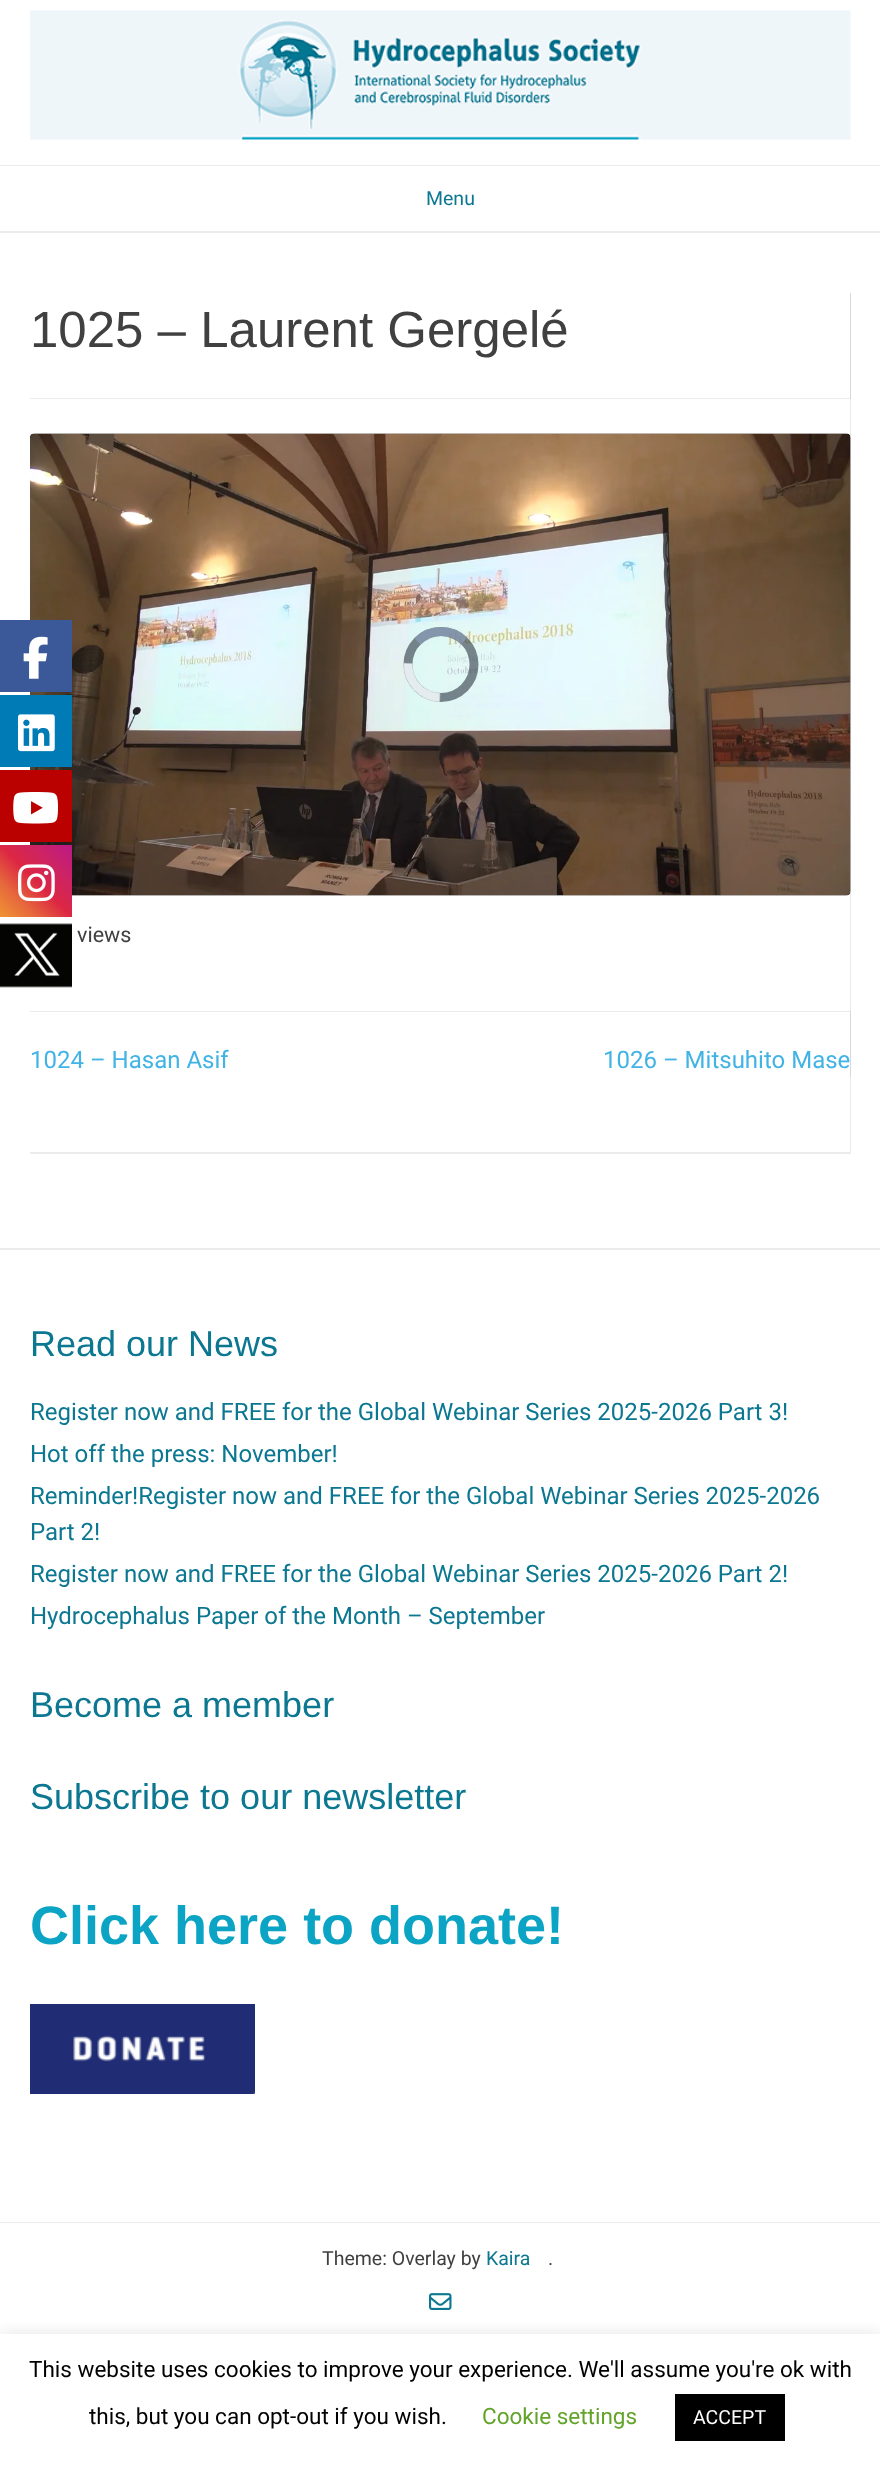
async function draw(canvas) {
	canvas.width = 880;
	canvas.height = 2466;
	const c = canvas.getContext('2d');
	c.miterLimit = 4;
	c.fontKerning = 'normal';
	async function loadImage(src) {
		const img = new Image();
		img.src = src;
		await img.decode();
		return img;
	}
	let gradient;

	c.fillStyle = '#fff';
	c.fillRect(0, 0, 880, 2466);
	c.fillStyle = '#ebebeb';
	c.beginPath();
	c.moveTo(0, 231);
	c.lineTo(0, 233);
	c.lineTo(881, 233);
	c.lineTo(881, 2);
	c.lineTo(880, 2);
	c.lineTo(880, 231);
	c.closePath();
	c.fill();
	c.drawImage(await loadImage('img1.png'), 30, 10, 821, 130);
	c.beginPath();
	c.moveTo(0, 165);
	c.lineTo(0, 166);
	c.lineTo(880, 166);
	c.lineTo(880, 230);
	c.lineTo(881, 230);
	c.lineTo(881, 165);
	c.closePath();
	c.fill();
	c.font = '19.5px Roboto';
	c.fillStyle = '#0c7791';
	c.fillText('Menu', 426, 205);
	c.fillStyle = '#ebebeb';
	c.beginPath();
	c.moveTo(30, 1152);
	c.lineTo(30, 1154);
	c.lineTo(851, 1154);
	c.lineTo(851, 293);
	c.lineTo(850, 293);
	c.lineTo(850, 1152);
	c.closePath();
	c.fill();
	c.fillStyle = '#00000014';
	c.beginPath();
	c.moveTo(30, 398);
	c.lineTo(30, 399);
	c.lineTo(851, 399);
	c.lineTo(851, 293);
	c.lineTo(850, 293);
	c.lineTo(850, 398);
	c.closePath();
	c.fill();
	c.font = '51px Liberation Sans';
	c.fillStyle = '#404040';
	c.fillText('1025 – Laurent Gergelé', 30, 347);
	c.drawImage(await loadImage('img2.png'), 30, 433, 821, 463);
	c.font = '21.5px Roboto';
	c.fillText('views', 77, 942);
	c.fillStyle = '#00000014';
	c.beginPath();
	c.moveTo(30, 1011);
	c.lineTo(30, 1012);
	c.lineTo(850, 1012);
	c.lineTo(850, 1077);
	c.lineTo(851, 1077);
	c.lineTo(851, 1011);
	c.closePath();
	c.fill();
	c.font = '24px Roboto';
	c.fillStyle = '#42b3e5';
	c.fillText('1024 – Hasan Asif', 30, 1068);
	c.fillText('1026 – Mitsuhito Mase', 603, 1068);
	c.fillStyle = '#ebebeb';
	c.beginPath();
	c.moveTo(0, 1248);
	c.lineTo(0, 1250);
	c.lineTo(880, 1250);
	c.lineTo(880, 2348);
	c.lineTo(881, 2348);
	c.lineTo(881, 1248);
	c.closePath();
	c.fill();
	c.font = '36px Liberation Sans';
	c.fillStyle = '#0c7791';
	c.fillText('Read our News', 30, 1356);
	c.font = '24px Roboto';
	for (const [text, x, y] of [
		['Register now and FREE for the Global Webinar Series 2025-2026 Part 3!', 30, 1420],
		['Hot off the press: November!', 30, 1462],
		['Reminder!Register now and FREE for the Global Webinar Series 2025-2026', 30, 1504],
		['Part 2!', 30, 1540],
		['Register now and FREE for the Global Webinar Series 2025-2026 Part 2!', 30, 1582],
		['Hydrocephalus Paper of the Month – September', 30, 1624],
	]) {
		c.fillText(text, x, y);
	}
	c.font = '36px Liberation Sans';
	c.fillText('Become a member', 30, 1717);
	c.fillText('Subscribe to our newsletter', 30, 1809);
	c.font = 'bold 54px Liberation Sans';
	c.fillStyle = '#0ba4c4';
	c.fillText('Click here to donate!', 30, 1944);
	c.drawImage(await loadImage('img3.png'), 30, 2004, 225, 90);
	c.fillStyle = '#ebebeb';
	c.beginPath();
	c.moveTo(0, 2222);
	c.lineTo(0, 2223);
	c.lineTo(880, 2223);
	c.lineTo(880, 2348);
	c.lineTo(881, 2348);
	c.lineTo(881, 2222);
	c.closePath();
	c.fill();
	c.font = '19.5px Roboto';
	c.fillStyle = '#404040';
	c.fillText('Theme: Overlay by', 322, 2265);
	c.fillStyle = '#0c7791';
	c.fillText('Kaira', 486, 2265);
	c.fillStyle = '#404040';
	c.fillText('.', 548, 2265);
	c.drawImage(await loadImage('img4.png'), 429, 2293, 23, 17);
	c.fillStyle = '#3b5998';
	c.fillRect(0, 620, 72, 72);
	c.drawImage(await loadImage('img5.png'), 23, 636, 25, 43);
	c.fillStyle = '#007bb6';
	c.fillRect(0, 695, 72, 72);
	c.drawImage(await loadImage('img6.png'), 18, 714, 37, 38);
	c.fillStyle = '#b00';
	c.fillRect(0, 770, 72, 72);
	c.drawImage(await loadImage('img7.png'), 13, 792, 45, 32);
	gradient = c.createLinearGradient(0, 917, 72, 845);
	gradient.addColorStop(0, '#f09433');
	gradient.addColorStop(0.25, '#e6683c');
	gradient.addColorStop(0.5, '#dc2743');
	gradient.addColorStop(0.75, '#cc2366');
	gradient.addColorStop(1, '#bc1888');
	c.fillStyle = gradient;
	c.fillRect(0, 845, 72, 72);
	c.drawImage(await loadImage('img8.png'), 18, 864, 37, 38);
	c.drawImage(await loadImage('img9.png'), 0, 923, 72, 65);
	c.save();
	c.beginPath();
	c.rect(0, 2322, 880, 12);
	c.clip();
	c.fillStyle = '#acabab4d';
	c.filter = 'blur(7.5px)';
	c.beginPath();
	c.rect(0, 2333, 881, 132);
	c.fill();
	c.filter = 'none';
	c.restore();
	c.font = '22.5px Roboto';
	c.fillStyle = '#000';
	c.fillText('This website uses cookies to improve your experience. We\'ll assume you\'re ok with', 29, 2377);
	c.fillText('this, but you can opt-out if you wish.', 89, 2424);
	c.fillStyle = '#62a329';
	c.fillText('Cookie settings', 482, 2424);
	c.fillStyle = '#000';
	c.fillRect(675, 2394, 110, 47);
	c.font = '19.5px Roboto';
	c.fillStyle = '#fff';
	c.fillText('ACCEPT', 693, 2424);
}

draw(document.querySelector('canvas'));
